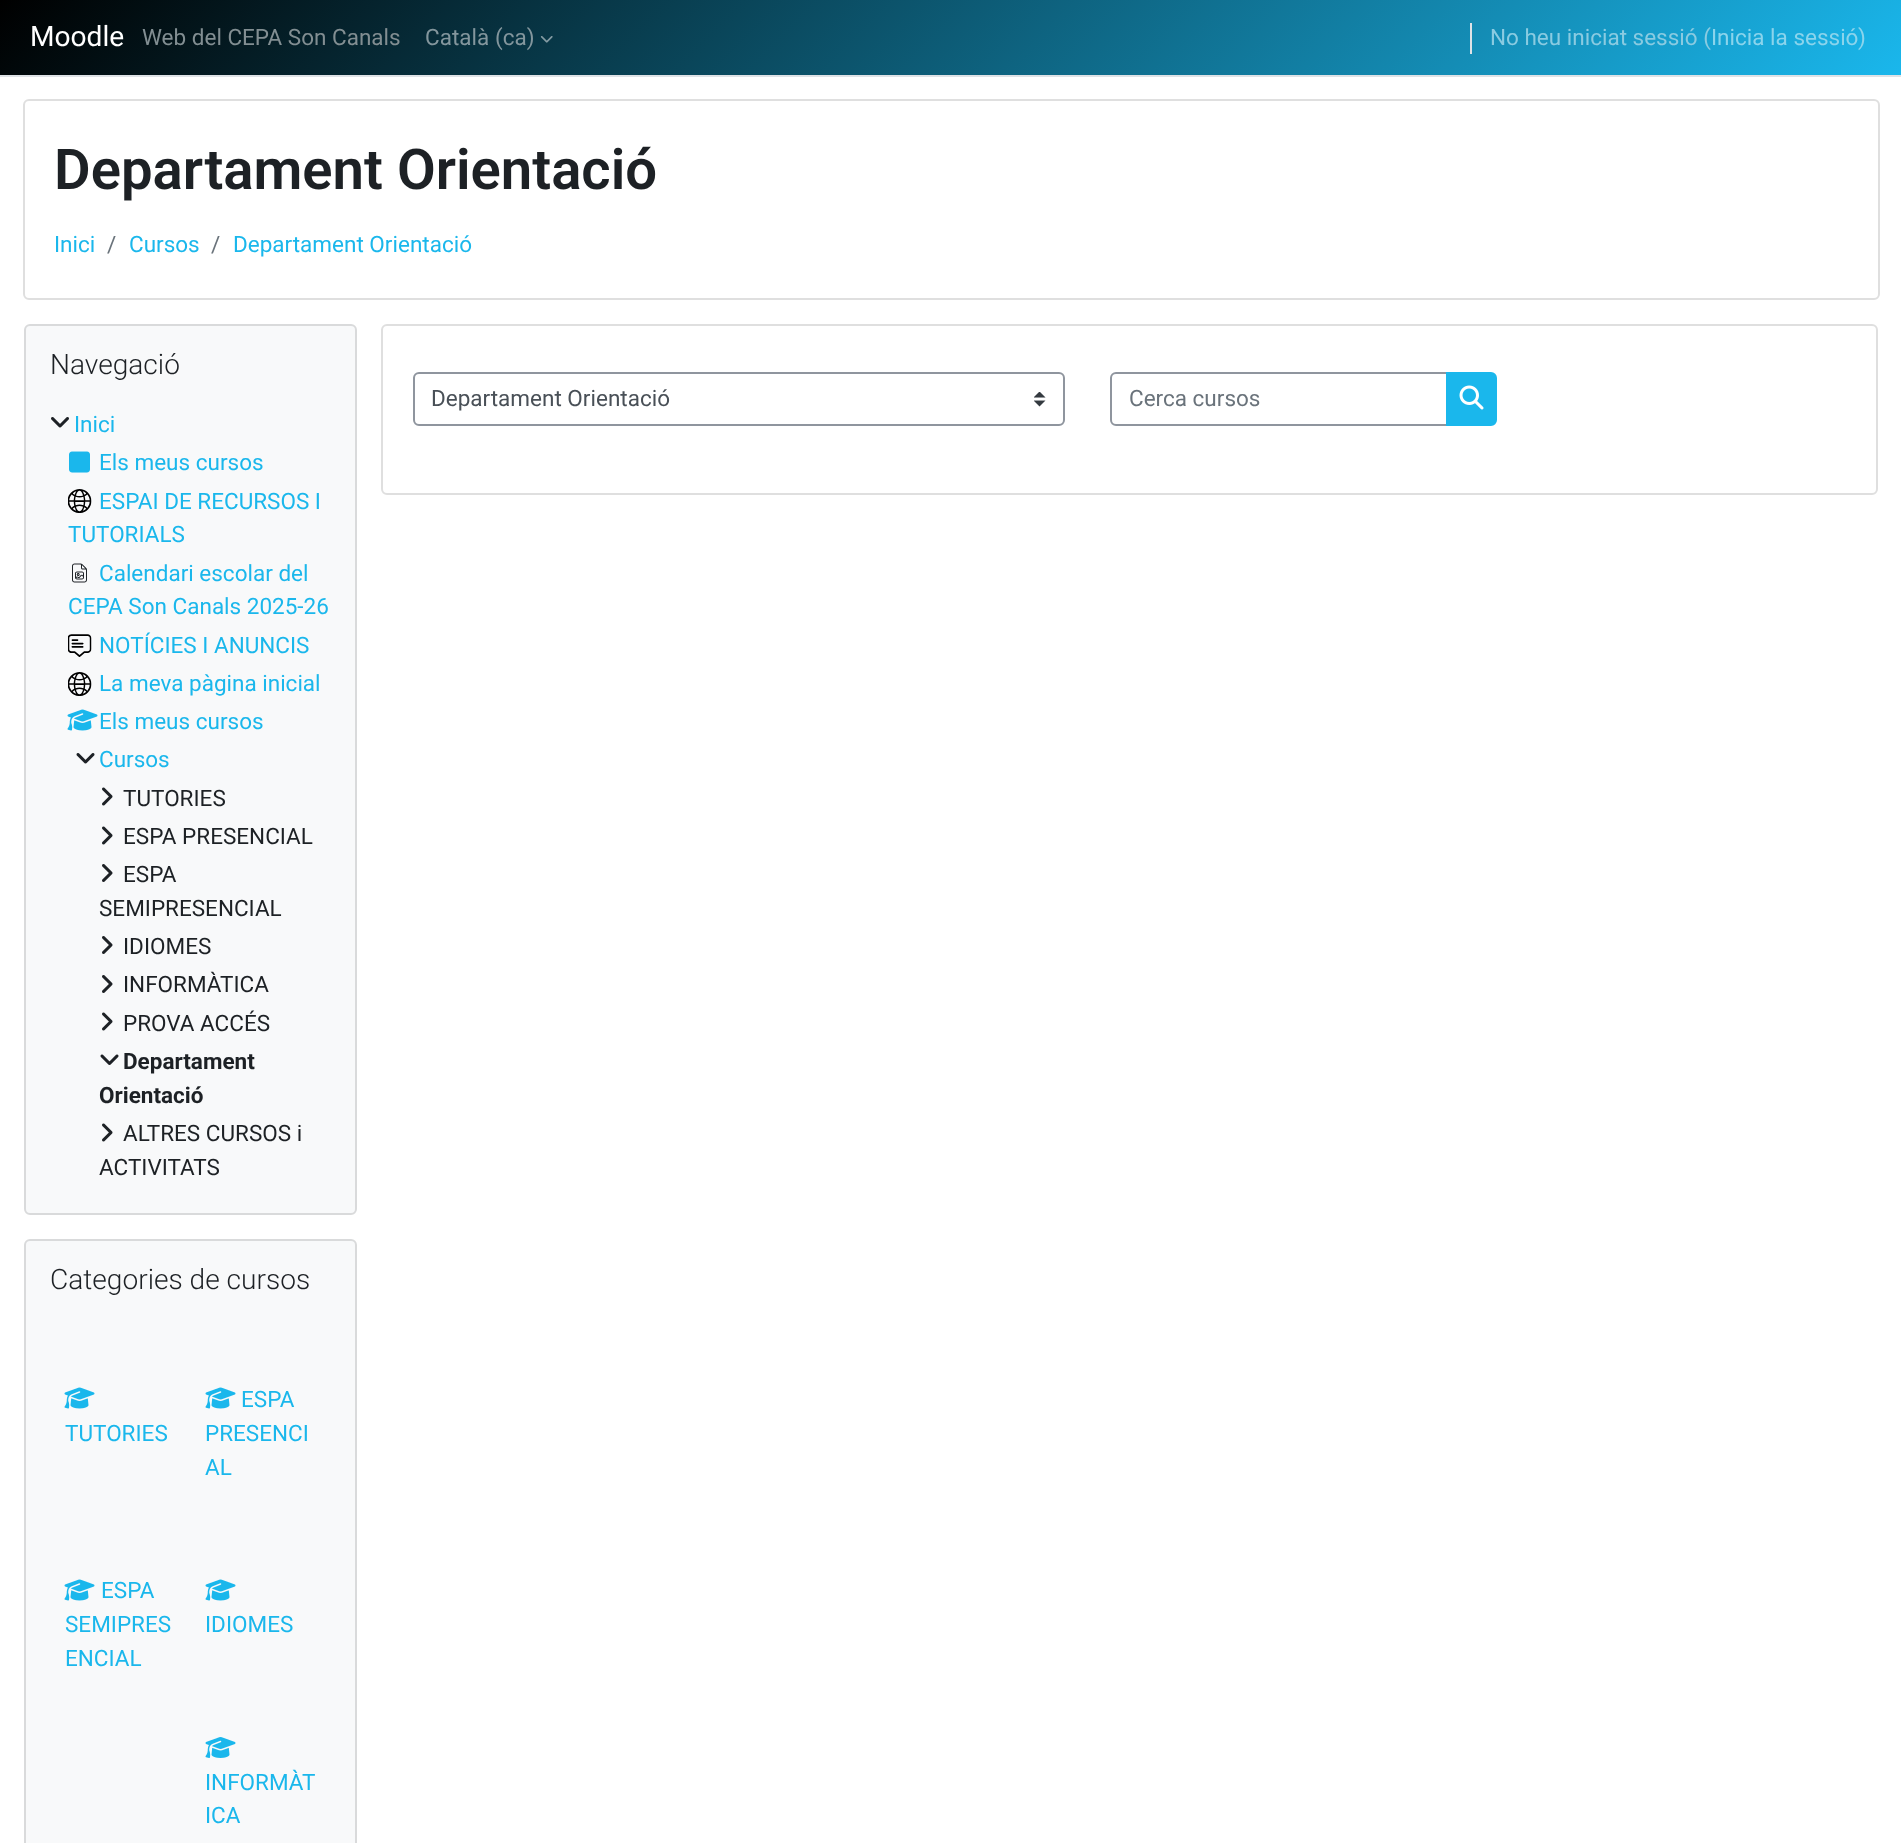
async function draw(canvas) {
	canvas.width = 1901;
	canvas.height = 1843;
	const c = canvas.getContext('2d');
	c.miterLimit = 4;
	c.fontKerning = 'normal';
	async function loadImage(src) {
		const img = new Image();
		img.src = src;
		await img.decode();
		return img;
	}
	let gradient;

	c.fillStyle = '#fff';
	c.fillRect(0, 0, 1901, 1843);
	gradient = c.createLinearGradient(457, -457, 1445, 532);
	gradient.addColorStop(0, '#000');
	gradient.addColorStop(1, '#1ab7ec');
	c.fillStyle = gradient;
	c.fillRect(0, 0, 1901, 75);
	c.fillStyle = '#dee2e6';
	c.fillRect(0, 75, 1901, 2);
	c.font = '28.1px Roboto';
	c.fillStyle = '#fff';
	c.fillText('Moodle', 30, 46);
	c.font = '22.5px Roboto';
	c.fillStyle = '#828e92';
	c.fillText('Web del CEPA Son Canals', 142, 45);
	c.fillStyle = '#83969d';
	c.fillText('Català', 425, 45);
	c.fillText('(ca)', 495, 45);
	c.drawImage(await loadImage('img1.png'), 540, 36, 13, 7);
	c.fillStyle = '#dee2e6';
	c.fillRect(1470, 23, 2, 31);
	c.fillStyle = '#8acbe1';
	c.fillText('No heu iniciat sessió (', 1490, 45);
	c.fillStyle = '#8bd4ec';
	c.fillText('Inicia la sessió', 1711, 45);
	c.fillText(')', 1858, 45);
	c.beginPath();
	c.roundRect(24, 100, 1855, 199, 5);
	c.strokeStyle = '#dfdfdf';
	c.lineWidth = 2;
	c.stroke();
	c.font = '600 56.25px Roboto';
	c.fillStyle = '#1d2125';
	c.fillText('Departament Orientació', 54, 189);
	c.font = '22.5px Roboto';
	c.fillStyle = '#1ab7ec';
	c.fillText('Inici', 54, 252);
	c.fillStyle = '#6a737b';
	c.fillText('/', 107, 252);
	c.fillStyle = '#1ab7ec';
	c.fillText('Cursos', 129, 252);
	c.fillStyle = '#6a737b';
	c.fillText('/', 211, 252);
	c.fillStyle = '#1ab7ec';
	c.fillText('Departament Orientació', 233, 252);
	c.fillStyle = '#f8f9fa';
	c.beginPath();
	c.roundRect(25, 325, 331, 889, 5);
	c.fill();
	c.strokeStyle = '#d9dadb';
	c.stroke();
	c.font = '300 28.1px Roboto';
	c.fillStyle = '#1d2125';
	c.fillText('Navegació', 50, 374);
	c.drawImage(await loadImage('img2.png'), 51, 417, 18, 11);
	c.font = '22.5px Roboto';
	c.fillStyle = '#1ab7ec';
	c.fillText('Inici', 74, 432);
	c.drawImage(await loadImage('img3.png'), 69, 451, 21, 22);
	c.fillText('Els meus cursos', 99, 470);
	c.drawImage(await loadImage('img4.png'), 68, 489, 24, 24);
	c.fillText('ESPAI DE RECURSOS I', 99, 509);
	c.fillText('TUTORIALS', 68, 542);
	c.drawImage(await loadImage('img5.png'), 72, 563, 15, 20);
	c.fillText('Calendari escolar del', 99, 581);
	c.fillText('CEPA Son Canals 2025-26', 68, 614);
	c.drawImage(await loadImage('img6.png'), 68, 634, 24, 23);
	c.fillText('NOTÍCIES I ANUNCIS', 99, 653);
	c.drawImage(await loadImage('img7.png'), 68, 672, 24, 24);
	c.fillText('La meva pàgina inicial', 99, 691);
	c.drawImage(await loadImage('img8.png'), 67, 709, 31, 22);
	c.fillText('Els meus cursos', 99, 729);
	c.drawImage(await loadImage('img9.png'), 76, 753, 19, 11);
	c.fillText('Cursos', 99, 767);
	c.drawImage(await loadImage('img10.png'), 102, 787, 11, 19);
	c.fillStyle = '#1d2125';
	c.fillText('TUTORIES', 123, 806);
	c.drawImage(await loadImage('img10.png'), 102, 826, 11, 19);
	c.fillText('ESPA PRESENCIAL', 123, 844);
	c.drawImage(await loadImage('img11.png'), 102, 864, 11, 18);
	c.fillText('ESPA', 123, 882);
	c.fillText('SEMIPRESENCIAL', 99, 916);
	c.drawImage(await loadImage('img11.png'), 102, 936, 11, 18);
	c.fillText('IDIOMES', 123, 954);
	c.drawImage(await loadImage('img11.png'), 102, 975, 11, 18);
	c.fillText('INFORMÀTICA', 123, 992);
	c.drawImage(await loadImage('img10.png'), 102, 1012, 11, 19);
	c.fillText('PROVA ACCÉS', 123, 1031);
	c.drawImage(await loadImage('img12.png'), 100, 1054, 19, 11);
	c.font = 'bold 22.5px Roboto';
	c.fillText('Departament', 123, 1069);
	c.fillText('Orientació', 99, 1103);
	c.drawImage(await loadImage('img10.png'), 102, 1123, 11, 19);
	c.font = '22.5px Roboto';
	c.fillText('ALTRES CURSOS i', 123, 1141);
	c.fillText('ACTIVITATS', 99, 1175);
	c.fillStyle = '#f8f9fa';
	c.beginPath();
	c.roundRect(25, 1240, 331, 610, 5);
	c.fill();
	c.stroke();
	c.font = '300 28.1px Roboto';
	c.fillStyle = '#1d2125';
	c.fillText('Categories de cursos', 50, 1289);
	c.drawImage(await loadImage('img8.png'), 64, 1387, 31, 22);
	c.font = '22.5px Roboto';
	c.fillStyle = '#1ab7ec';
	c.fillText('TUTORIES', 65, 1441);
	c.drawImage(await loadImage('img8.png'), 205, 1387, 31, 22);
	for (const [text, x, y] of [
		['ESPA', 241, 1407],
		['PRESENCI', 205, 1441],
		['AL', 205, 1475],
	]) {
		c.fillText(text, x, y);
	}
	c.drawImage(await loadImage('img8.png'), 64, 1579, 31, 22);
	for (const [text, x, y] of [
		['ESPA', 101, 1598],
		['SEMIPRES', 65, 1632],
		['ENCIAL', 65, 1666],
	]) {
		c.fillText(text, x, y);
	}
	c.drawImage(await loadImage('img8.png'), 205, 1579, 31, 22);
	c.fillText('IDIOMES', 205, 1632);
	c.drawImage(await loadImage('img13.png'), 205, 1737, 31, 21);
	c.fillText('INFORMÀT', 205, 1790);
	c.fillText('ICA', 205, 1823);
	c.beginPath();
	c.roundRect(382, 325, 1495, 169, 5);
	c.strokeStyle = '#dfdfdf';
	c.stroke();
	c.drawImage(await loadImage('img14.png'), 1034, 392, 12, 15);
	c.beginPath();
	c.roundRect(414, 373, 650, 52, 5);
	c.strokeStyle = '#8f959e';
	c.stroke();
	c.fillStyle = '#495057';
	c.fillText('Departament Orientació', 431, 406);
	c.beginPath();
	c.roundRect(1111, 373, 336, 52, [5, 0, 0, 5]);
	c.stroke();
	c.fillStyle = '#6a737b';
	c.fillText('Cerca cursos', 1129, 406);
	c.fillStyle = '#1ab7ec';
	c.beginPath();
	c.roundRect(1447, 373, 49, 52, [0, 5, 5, 0]);
	c.fill();
	c.strokeStyle = '#1ab7ec';
	c.stroke();
	c.drawImage(await loadImage('img15.png'), 1459, 385, 25, 25);
}

draw(document.querySelector('canvas'));
